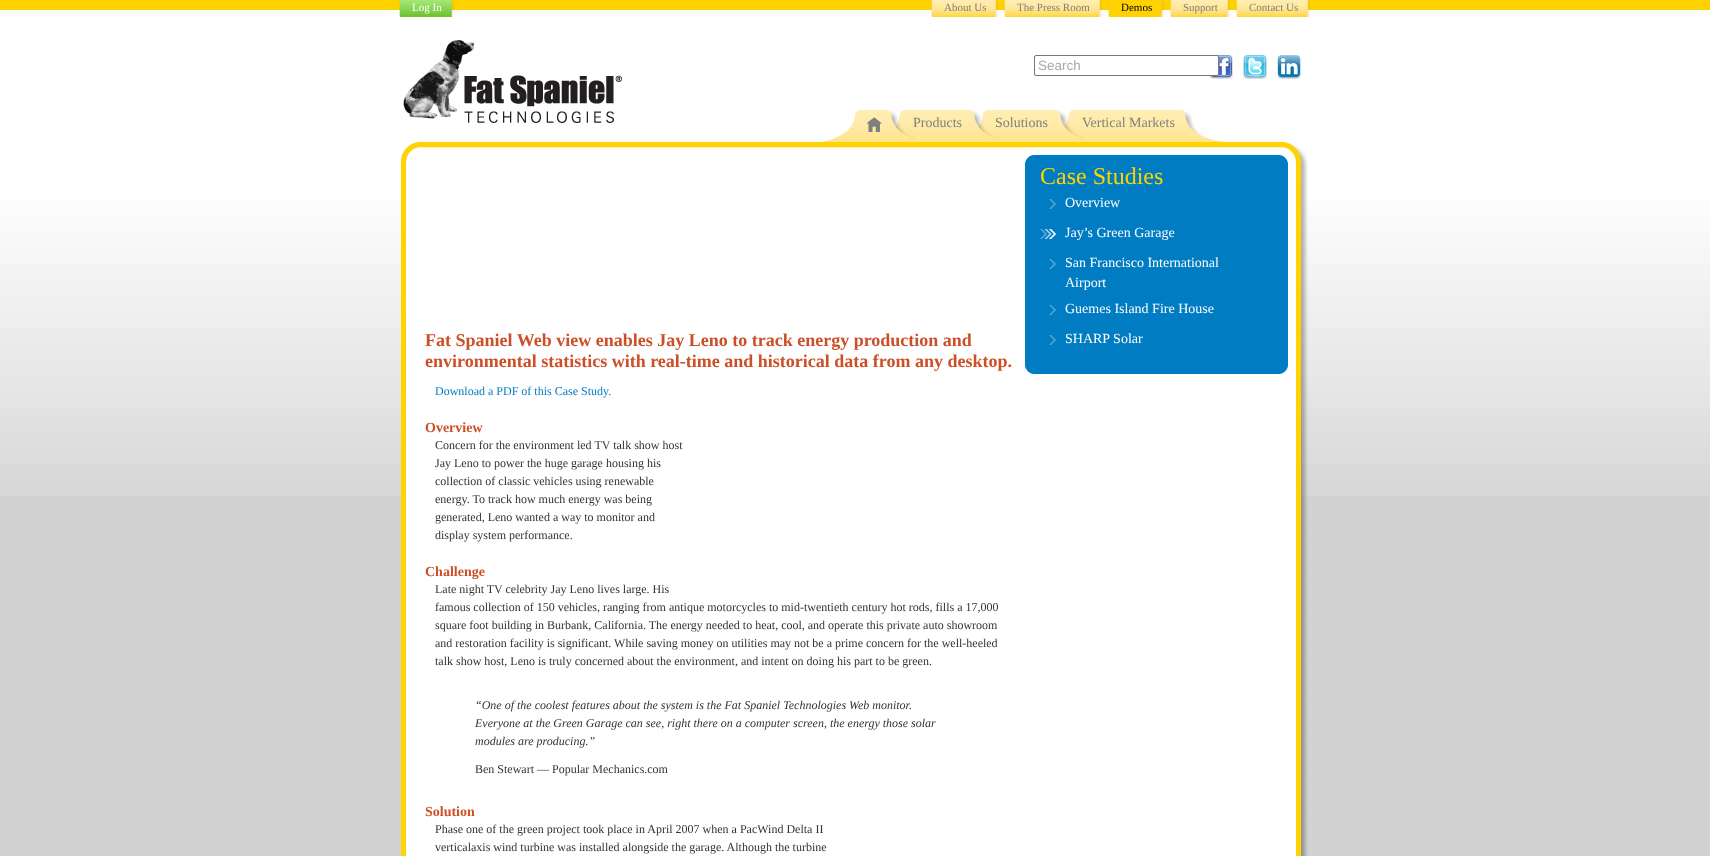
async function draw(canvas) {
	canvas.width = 1710;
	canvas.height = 856;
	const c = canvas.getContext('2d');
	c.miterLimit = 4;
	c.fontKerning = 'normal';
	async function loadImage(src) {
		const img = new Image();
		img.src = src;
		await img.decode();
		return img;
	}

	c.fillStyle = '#d2d2d2';
	c.fillRect(0, 0, 1710, 856);
	c.drawImage(await loadImage('img1.png'), 0, 0, 1710, 496);
	c.drawImage(await loadImage('img2.png'), 400, 0, 55, 17);
	c.drawImage(await loadImage('img3.png'), 399, 0, 1, 17);
	c.font = '11px Liberation Serif';
	c.fillStyle = '#fff';
	c.fillText('Log In', 412, 11);
	c.drawImage(await loadImage('img4.png'), 932, 0, 67, 17);
	c.drawImage(await loadImage('img5.png'), 931, 0, 1, 17);
	c.fillStyle = '#808080';
	c.fillText('About Us', 944, 11);
	c.drawImage(await loadImage('img6.png'), 1005, 0, 98, 17);
	c.drawImage(await loadImage('img5.png'), 1004, 0, 1, 17);
	c.fillText('The Press Room', 1017, 11);
	c.drawImage(await loadImage('img7.png'), 1108, 1, 57, 16);
	c.drawImage(await loadImage('img8.png'), 1108, 2, 1, 15);
	c.fillStyle = '#000';
	c.fillText('Demos', 1121, 11);
	c.drawImage(await loadImage('img9.png'), 1171, 0, 60, 17);
	c.drawImage(await loadImage('img5.png'), 1170, 0, 1, 17);
	c.fillStyle = '#808080';
	c.fillText('Support', 1183, 11);
	c.drawImage(await loadImage('img10.png'), 1237, 0, 74, 17);
	c.drawImage(await loadImage('img5.png'), 1236, 0, 1, 17);
	c.fillText('Contact Us', 1249, 11);
	c.drawImage(await loadImage('img11.png'), 403, 40, 219, 83);
	c.drawImage(await loadImage('img12.png'), 1209, 55, 24, 24);
	c.fillStyle = '#fff';
	c.beginPath();
	c.roundRect(1034.5, 55.5, 184, 20, 1.5);
	c.fill();
	c.strokeStyle = '#767676';
	c.stroke();
	c.font = '13.5px Liberation Sans';
	c.fillStyle = '#aaa';
	c.fillText('Search', 1038, 70);
	c.drawImage(await loadImage('img13.png'), 1243, 55, 24, 24);
	c.drawImage(await loadImage('img14.png'), 1277, 55, 24, 24);
	c.drawImage(await loadImage('img15.png'), 859, 110, 36, 32);
	c.drawImage(await loadImage('img16.png'), 814, 110, 45, 32);
	c.drawImage(await loadImage('img17.png'), 866, 117, 16, 15);
	c.drawImage(await loadImage('img18.png'), 888, 110, 7, 16);
	c.drawImage(await loadImage('img19.png'), 895, 110, 83, 32);
	c.drawImage(await loadImage('img20.png'), 895, 110, 21, 29);
	c.font = '14px Liberation Serif';
	c.fillStyle = '#808080';
	c.fillText('Products', 913, 127);
	c.drawImage(await loadImage('img18.png'), 971, 110, 7, 16);
	c.drawImage(await loadImage('img21.png'), 978, 110, 86, 32);
	c.drawImage(await loadImage('img20.png'), 978, 110, 21, 29);
	c.fillText('Solutions', 995, 127);
	c.drawImage(await loadImage('img18.png'), 1057, 110, 7, 16);
	c.drawImage(await loadImage('img22.png'), 1064, 110, 118, 32);
	c.drawImage(await loadImage('img20.png'), 1064, 110, 21, 29);
	c.fillText('Vertical Markets', 1082, 127);
	c.drawImage(await loadImage('img23.png'), 1182, 110, 43, 32);
	c.drawImage(await loadImage('img24.png'), 401, 142, 907, 20);
	c.drawImage(await loadImage('img25.png'), 401, 162, 907, 694);
	c.drawImage(await loadImage('img26.png'), 1025, 155, 263, 8);
	c.fillStyle = '#007cc2';
	c.fillRect(1025, 163, 263, 203);
	c.font = '24px Liberation Serif';
	c.fillStyle = '#ffd200';
	c.fillText('Case Studies', 1040, 184);
	c.drawImage(await loadImage('img27.png'), 1049, 199, 7, 10);
	c.font = '14px Liberation Serif';
	c.fillStyle = '#fff';
	c.fillText('Overview', 1065, 207);
	c.drawImage(await loadImage('img28.png'), 1040, 229, 16, 10);
	c.fillText('Jay’s Green Garage', 1065, 237);
	c.drawImage(await loadImage('img27.png'), 1049, 259, 7, 10);
	c.fillText('San Francisco International', 1065, 267);
	c.fillText('Airport', 1065, 287);
	c.drawImage(await loadImage('img27.png'), 1049, 305, 7, 10);
	c.fillText('Guemes Island Fire House', 1065, 313);
	c.drawImage(await loadImage('img27.png'), 1049, 335, 7, 10);
	c.fillText('SHARP Solar', 1065, 343);
	c.drawImage(await loadImage('img29.png'), 1025, 366, 263, 8);
	c.font = 'bold 18px Liberation Serif';
	c.fillStyle = '#cd4e27';
	c.fillText('Fat Spaniel Web view enables Jay Leno to track energy production and', 425, 346);
	c.fillText('environmental statistics with real-time and historical data from any desktop.', 425, 367);
	c.font = '12px Liberation Serif';
	c.fillStyle = '#007cc2';
	c.fillText('Download a PDF of this Case Study.', 435, 395);
	c.font = 'bold 14px Liberation Serif';
	c.fillStyle = '#cd4e27';
	c.fillText('Overview', 425, 432);
	c.font = '12px Liberation Serif';
	c.fillStyle = '#333';
	for (const [text, x, y] of [
		['Concern for the environment led TV talk show host', 435, 449],
		['Jay Leno to power the huge garage housing his', 435, 467],
		['collection of classic vehicles using renewable', 435, 485],
		['energy. To track how much energy was being', 435, 503],
		['generated, Leno wanted a way to monitor and', 435, 521],
		['display system performance.', 435, 539],
	]) {
		c.fillText(text, x, y);
	}
	c.font = 'bold 14px Liberation Serif';
	c.fillStyle = '#cd4e27';
	c.fillText('Challenge', 425, 576);
	c.font = '12px Liberation Serif';
	c.fillStyle = '#333';
	for (const [text, x, y] of [
		['Late night TV celebrity Jay Leno lives large. His', 435, 593],
		['famous collection of 150 vehicles, ranging from antique motorcycles to mid-twentieth century hot rods, fills a 17,000', 435, 611],
		['square foot building in Burbank, California. The energy needed to heat, cool, and operate this private auto showroom', 435, 629],
		['and restoration facility is significant. While saving money on utilities may not be a prime concern for the well-heeled', 435, 647],
		['talk show host, Leno is truly concerned about the environment, and intent on doing his part to be green.', 435, 665],
	]) {
		c.fillText(text, x, y);
	}
	c.font = 'italic 12px Liberation Serif';
	for (const [text, x, y] of [
		['“One of the coolest features about the system is the Fat Spaniel Technologies Web monitor.', 475, 709],
		['Everyone at the Green Garage can see, right there on a computer screen, the energy those solar', 475, 727],
		['modules are producing.”', 475, 745],
	]) {
		c.fillText(text, x, y);
	}
	c.font = '12px Liberation Serif';
	c.fillText('Ben Stewart — Popular Mechanics.com', 475, 773);
	c.font = 'bold 14px Liberation Serif';
	c.fillStyle = '#cd4e27';
	c.fillText('Solution', 425, 816);
	c.font = '12px Liberation Serif';
	c.fillStyle = '#333';
	c.fillText('Phase one of the green project took place in April 2007 when a PacWind Delta II', 435, 833);
	c.fillText('verticalaxis wind turbine was installed alongside the garage. Although the turbine', 435, 851);
}

draw(document.querySelector('canvas'));
